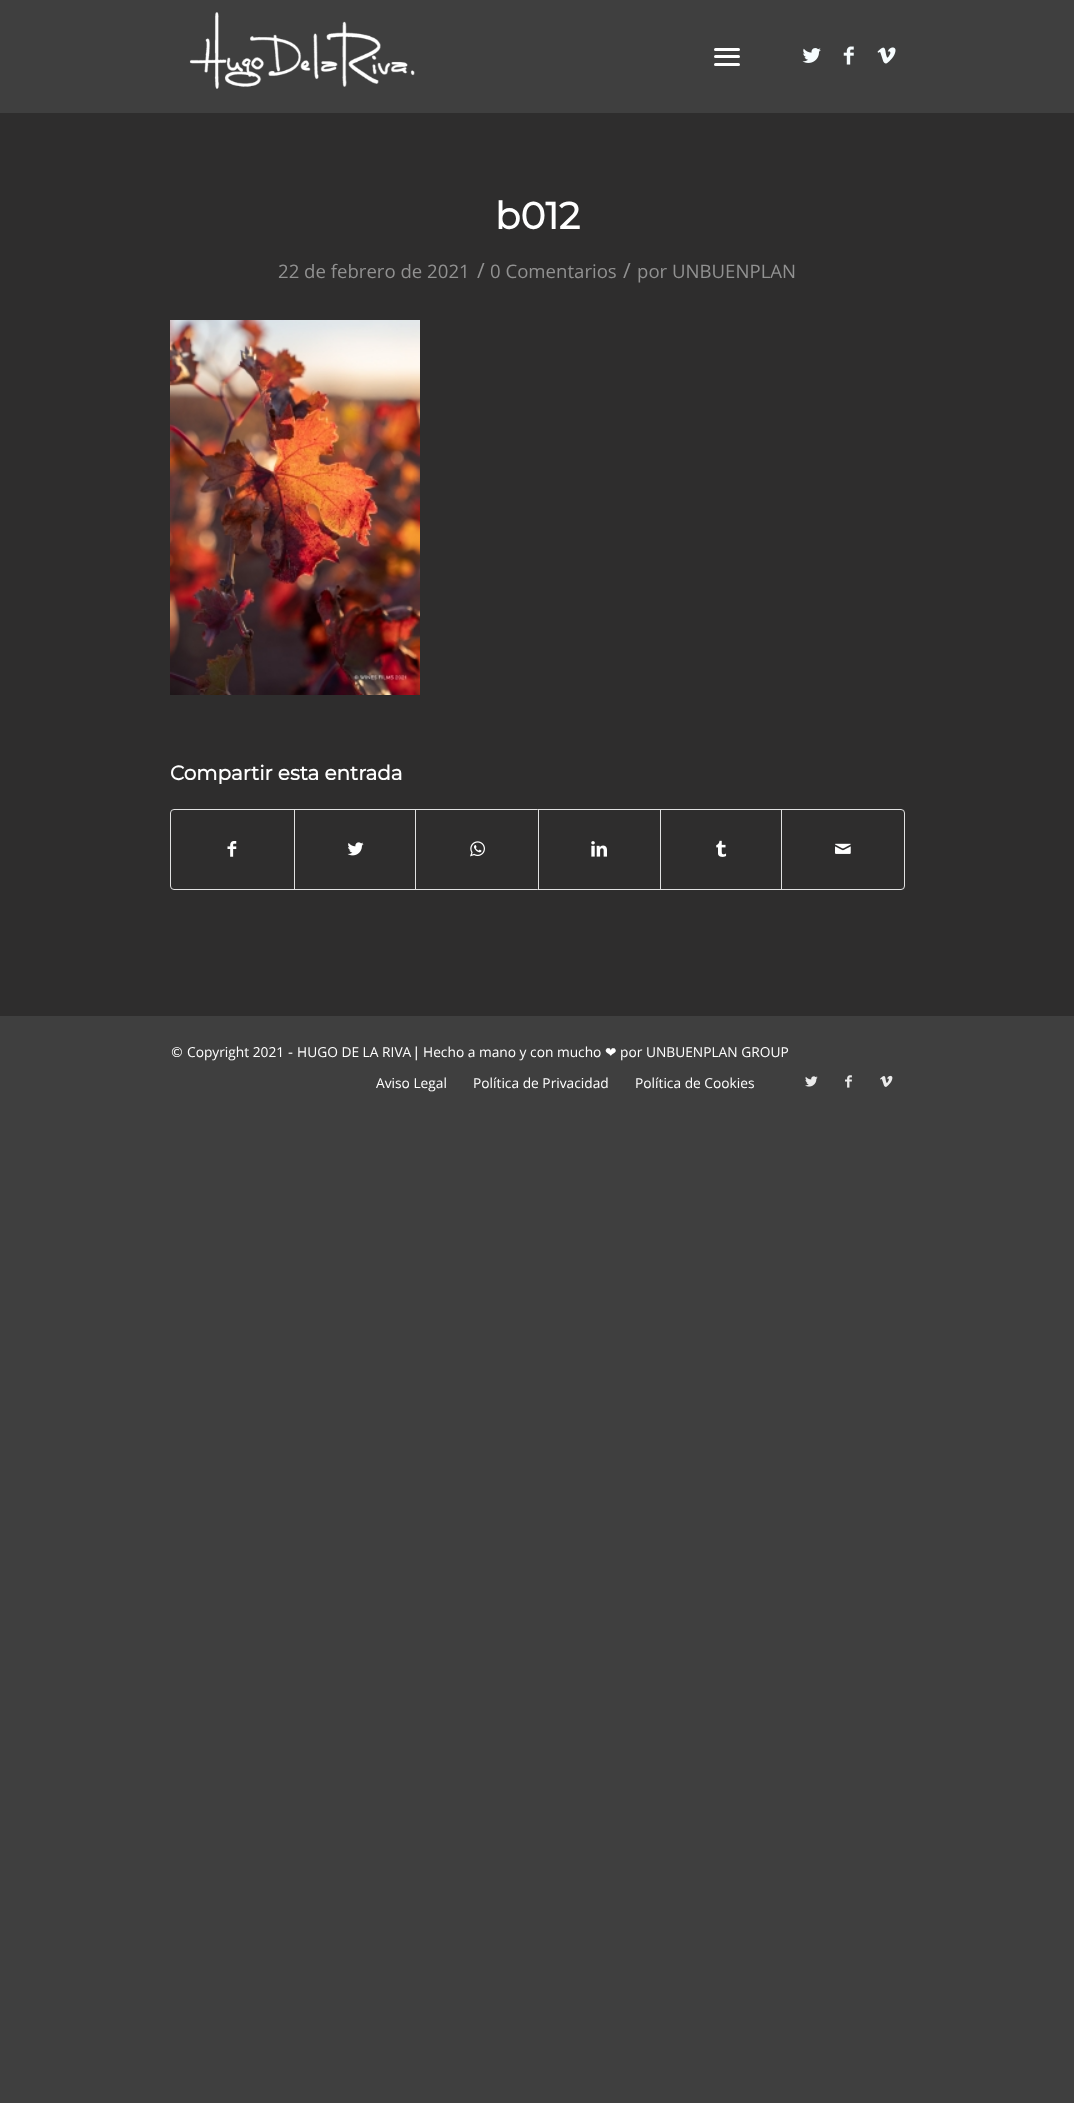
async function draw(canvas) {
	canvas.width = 1074;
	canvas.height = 2103;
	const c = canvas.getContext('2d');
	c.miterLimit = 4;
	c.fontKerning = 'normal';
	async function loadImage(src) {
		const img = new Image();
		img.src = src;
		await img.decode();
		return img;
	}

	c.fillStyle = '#3f3f3f';
	c.fillRect(0, 0, 1074, 2103);
	c.drawImage(await loadImage('img1.png'), 189, 12, 226, 77);
	c.fillStyle = '#fff';
	c.beginPath();
	c.roundRect(714, 55, 26, 3, 1.5);
	c.fill();
	c.beginPath();
	c.roundRect(714, 48, 26, 3, 1.5);
	c.fill();
	c.beginPath();
	c.roundRect(714, 63, 26, 3, 1.5);
	c.fill();
	c.drawImage(await loadImage('img2.png'), 802, 48, 19, 15);
	c.drawImage(await loadImage('img3.png'), 843, 46, 11, 19);
	c.drawImage(await loadImage('img4.png'), 877, 47, 19, 17);
	c.fillStyle = '#2e2d2d';
	c.fillRect(0, 113, 1074, 903);
	c.font = 'bold 37.5px Montserrat';
	c.fillStyle = '#fff';
	c.fillText('b012', 495, 229);
	c.font = '18.6px Open Sans';
	c.fillStyle = '#919191';
	c.fillText('22 de febrero de 2021', 278, 278);
	c.font = '21px Open Sans';
	c.fillText('/', 477, 278);
	c.font = '18.6px Open Sans';
	c.fillText('0 Comentarios', 490, 278);
	c.font = '21px Open Sans';
	c.fillText('/', 623, 278);
	c.font = '18.6px Open Sans';
	c.fillText('por UNBUENPLAN', 637, 278);
	c.drawImage(await loadImage('img5.png'), 170, 320, 250, 375);
	c.font = 'bold 20px Montserrat';
	c.fillStyle = '#fff';
	c.fillText('Compartir esta entrada', 170, 780);
	c.beginPath();
	c.roundRect(170.5, 809.5, 734, 80, 3.5);
	c.strokeStyle = '#e1e1e1';
	c.stroke();
	c.drawImage(await loadImage('img6.png'), 227, 841, 10, 16);
	c.fillStyle = '#e1e1e1';
	c.fillRect(294, 810, 1, 79);
	c.drawImage(await loadImage('img7.png'), 347, 842, 17, 14);
	c.fillRect(415, 810, 1, 79);
	c.drawImage(await loadImage('img8.png'), 470, 841, 15, 16);
	c.fillRect(538, 810, 1, 79);
	c.drawImage(await loadImage('img9.png'), 591, 841, 16, 16);
	c.fillRect(660, 810, 1, 79);
	c.drawImage(await loadImage('img10.png'), 716, 840, 11, 17);
	c.fillRect(781, 810, 1, 79);
	c.drawImage(await loadImage('img11.png'), 835, 843, 16, 11);
	c.font = '13.75px DejaVu Sans';
	c.fillStyle = '#fff';
	c.fillText('©', 170, 1057);
	c.font = '13.75px Open Sans';
	c.fillText('Copyright 2021', 187, 1057);
	c.font = '13.75px DejaVu Sans';
	c.fillText('-', 288, 1057);
	c.font = '13.75px Open Sans';
	c.fillText('HUGO DE LA RIVA', 297, 1057);
	c.font = '13.75px DejaVu Sans';
	c.fillText('|', 414, 1057);
	c.font = '13.75px Open Sans';
	c.fillText('Hecho a mano y con mucho', 423, 1057);
	c.font = '13.75px DejaVu Sans';
	c.fillText('❤', 605, 1057);
	c.font = '13.75px Open Sans';
	for (const [text, x, y] of [
		['por UNBUENPLAN GROUP', 620, 1057],
		['Aviso Legal', 376, 1088],
		['Política de Privacidad', 473, 1088],
		['Política de Cookies', 635, 1088],
	]) {
		c.fillText(text, x, y);
	}
	c.drawImage(await loadImage('img12.png'), 805, 1076, 13, 11);
	c.drawImage(await loadImage('img13.png'), 845, 1075, 7, 13);
	c.drawImage(await loadImage('img14.png'), 880, 1075, 13, 12);
}

draw(document.querySelector('canvas'));
